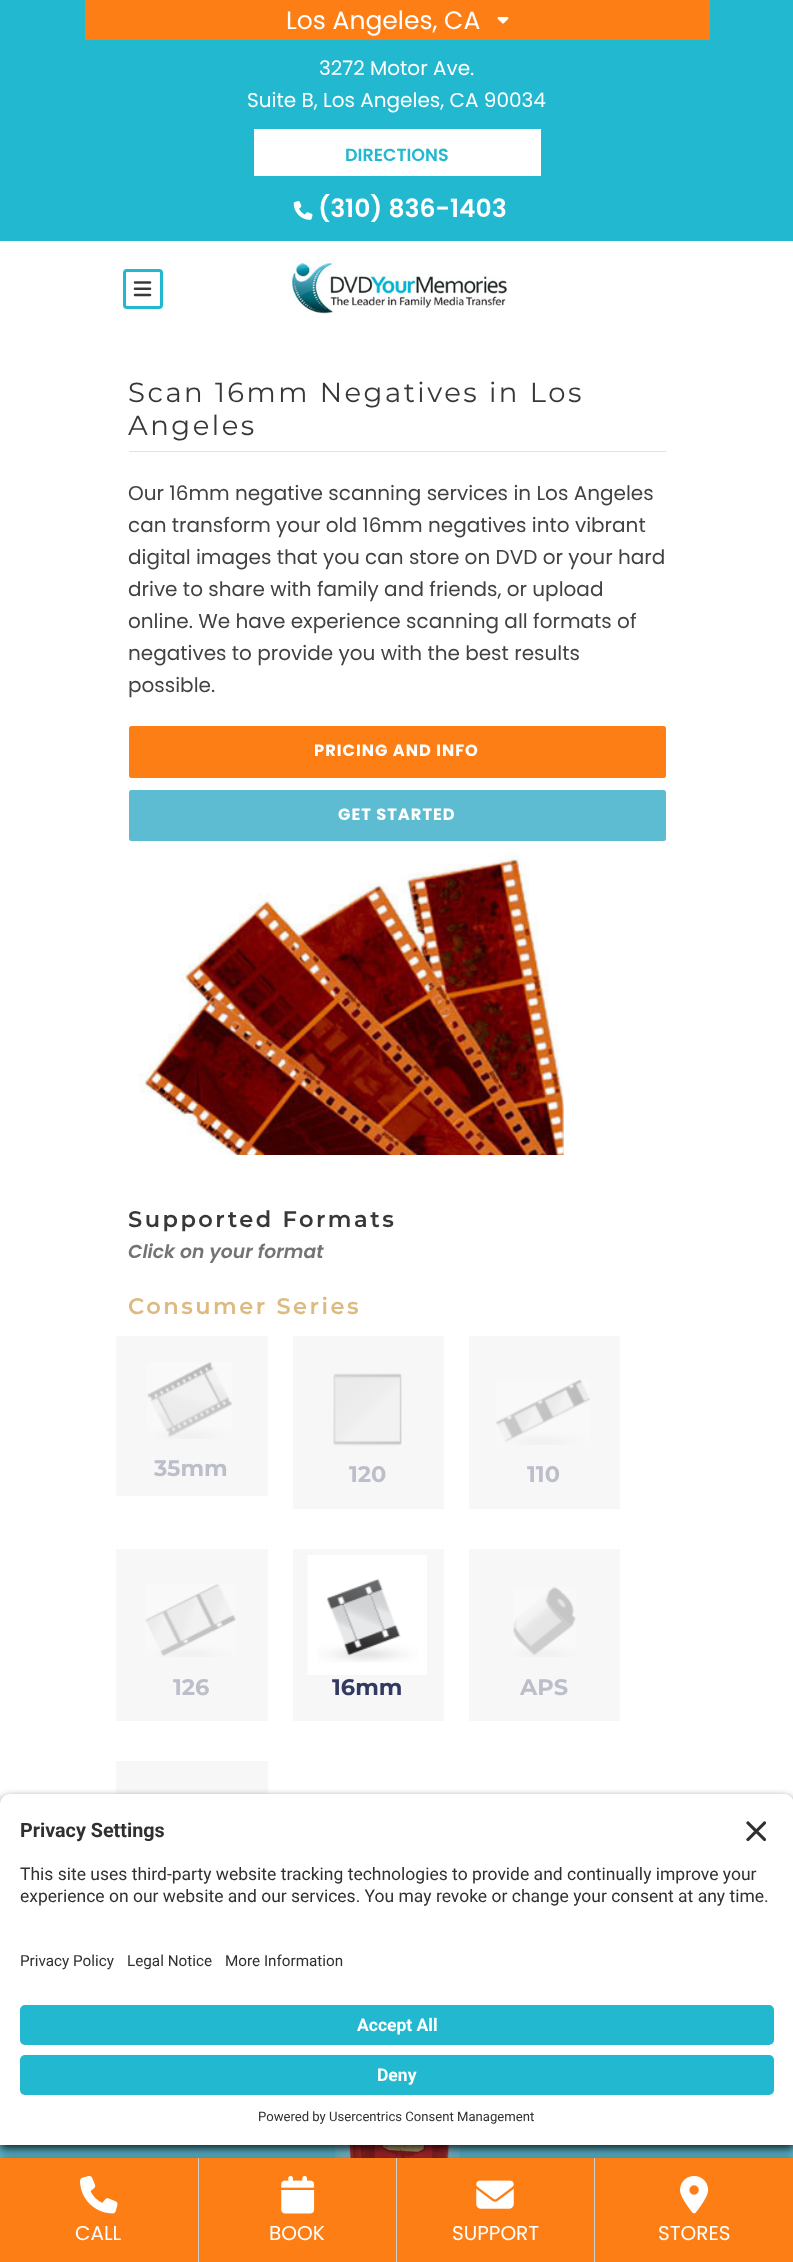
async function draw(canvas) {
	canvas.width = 793;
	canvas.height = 2262;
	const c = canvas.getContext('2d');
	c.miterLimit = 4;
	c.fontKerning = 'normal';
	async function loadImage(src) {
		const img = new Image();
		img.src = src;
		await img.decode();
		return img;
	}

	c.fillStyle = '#fff';
	c.fillRect(0, 0, 793, 2262);
	c.fillStyle = '#22b8cf';
	c.fillRect(0, 0, 793, 241);
	c.fillStyle = '#fd7e14';
	c.fillRect(85, 0, 625, 40);
	c.font = '25px Poppins';
	c.fillStyle = '#fff';
	c.fillText('Los Angeles, CA', 286, 29);
	c.drawImage(await loadImage('img1.png'), 497, 17, 12, 7);
	c.font = '20px Poppins';
	c.fillText('3272 Motor Ave.', 319, 75);
	c.fillText('Suite B, Los Angeles, CA 90034', 247, 107);
	c.fillRect(254, 129, 287, 47);
	c.font = '600 17.5px Poppins';
	c.fillStyle = '#22b8cf';
	c.fillText('DIRECTIONS', 345, 161);
	c.drawImage(await loadImage('img2.png'), 293, 201, 20, 19);
	c.font = '600 25px Poppins';
	c.fillStyle = '#fff';
	c.fillText('(310) 836-1403', 318, 217);
	c.beginPath();
	c.roundRect(124.5, 270.5, 37, 37, 2.5);
	c.strokeStyle = '#22b8cf';
	c.lineWidth = 3;
	c.stroke();
	c.drawImage(await loadImage('img3.png'), 133, 281, 19, 16);
	c.drawImage(await loadImage('img4.png'), 287, 260, 222, 54);
	c.letterSpacing = '2.5px';
	c.font = '27.5px Montserrat';
	c.fillStyle = '#383838';
	c.fillText('Scan 16mm Negatives in Los', 128, 402);
	c.fillText('Angeles', 128, 435);
	c.fillStyle = '#e2e2e2';
	c.fillRect(129, 451, 537, 1);
	c.letterSpacing = '0px';
	c.font = '20px Poppins';
	c.fillStyle = '#424242';
	for (const [text, x, y] of [
		['Our 16mm negative scanning services in Los Angeles', 128, 500],
		['can transform your old 16mm negatives into vibrant', 128, 532],
		['digital images that you can store on DVD or your hard', 128, 564],
		['drive to share with family and friends, or upload', 128, 596],
		['online. We have experience scanning all formats of', 128, 628],
		['negatives to provide you with the best results', 128, 660],
		['possible.', 128, 692],
	]) {
		c.fillText(text, x, y);
	}
	c.fillStyle = '#fd7e14';
	c.beginPath();
	c.roundRect(129, 726, 537, 52, 2.5);
	c.fill();
	c.letterSpacing = '1px';
	c.font = 'bold 16.25px Poppins';
	c.fillStyle = '#fff';
	c.fillText('PRICING AND INFO', 314, 756);
	c.fillStyle = '#5dbcd2';
	c.beginPath();
	c.roundRect(129, 790, 537, 51, 2.5);
	c.fill();
	c.fillStyle = '#fff';
	c.fillText('GET STARTED', 338, 820);
	c.drawImage(await loadImage('img5.png'), 139, 854, 425, 301);
	c.letterSpacing = '2.5px';
	c.font = '600 22.5px Montserrat';
	c.fillStyle = '#383838';
	c.fillText('Supported Formats', 128, 1227);
	c.letterSpacing = '0px';
	c.font = 'italic 600 18.75px Poppins';
	c.fillStyle = '#747474';
	c.fillText('Click on your format', 128, 1258);
	c.letterSpacing = '2.5px';
	c.font = '600 22.5px Montserrat';
	c.fillStyle = '#ddba80';
	c.fillText('Consumer Series', 128, 1314);
	c.fillStyle = '#f7f7f7';
	c.fillRect(116, 1336, 152, 160);
	c.drawImage(await loadImage('img6.png'), 147, 1362, 85, 77);
	c.letterSpacing = '0px';
	c.font = 'bold 22.5px Montserrat';
	c.fillStyle = '#bcbeca';
	c.fillText('35mm', 154, 1476);
	c.fillStyle = '#f7f7f7';
	c.fillRect(293, 1336, 151, 173);
	c.drawImage(await loadImage('img7.png'), 333, 1373, 69, 73);
	c.fillStyle = '#bcbeca';
	c.fillText('120', 349, 1482);
	c.fillStyle = '#f7f7f7';
	c.fillRect(469, 1336, 151, 173);
	c.drawImage(await loadImage('img8.png'), 496, 1379, 94, 66);
	c.fillStyle = '#bcbeca';
	c.fillText('110', 527, 1482);
	c.fillStyle = '#f7f7f7';
	c.fillRect(116, 1549, 152, 172);
	c.drawImage(await loadImage('img9.png'), 145, 1584, 91, 73);
	c.fillStyle = '#bcbeca';
	c.fillText('126', 173, 1695);
	c.fillStyle = '#f7f7f7';
	c.fillRect(293, 1549, 151, 172);
	c.drawImage(await loadImage('img10.png'), 307, 1555, 120, 120);
	c.fillStyle = '#333a61';
	c.fillText('16mm', 332, 1695);
	c.fillStyle = '#f7f7f7';
	c.fillRect(469, 1549, 151, 172);
	c.drawImage(await loadImage('img11.png'), 513, 1587, 63, 70);
	c.fillStyle = '#bcbeca';
	c.fillText('APS', 520, 1695);
	c.fillStyle = '#f7f7f7';
	c.fillRect(116, 1761, 152, 33);
	c.fillStyle = '#5dbcd2';
	c.fillRect(0, 2145, 793, 13);
	c.drawImage(await loadImage('img12.png'), 335, 2145, 125, 13);
	c.fillStyle = '#0000004d';
	c.filter = 'blur(6px)';
	c.beginPath();
	c.rect(0, 2156, 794, 105);
	c.fill();
	c.filter = 'none';
	for (const [x, y, w, h, color] of [
		[0, 2158, 793, 104, '#fd7e14'],
		[198, 2158, 1, 104, '#cecece'],
		[396, 2158, 1, 104, '#cecece'],
		[594, 2158, 1, 104, '#cecece'],
	]) {
		c.fillStyle = color;
		c.fillRect(x, y, w, h);
	}
	c.save();
	c.beginPath();
	c.rect(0, 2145, 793, 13);
	c.clip();
	c.fillStyle = '#000000cc';
	c.filter = 'blur(4.5px)';
	c.beginPath();
	c.rect(0, -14, 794, 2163);
	c.fill();
	c.filter = 'none';
	c.restore();
	c.save();
	c.beginPath();
	c.rect(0, 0, 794, 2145);
	c.clip();
	c.fillStyle = '#000000cc';
	c.filter = 'blur(4.5px)';
	c.beginPath();
	c.roundRect(0, 1798, 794, 351, 10);
	c.fill();
	c.filter = 'none';
	c.restore();
	c.fillStyle = '#fff';
	c.beginPath();
	c.moveTo(10, 1794);
	c.lineTo(784, 1794);
	c.bezierCurveTo(789.5, 1794, 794, 1798.5, 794, 1804);
	c.lineTo(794, 1933);
	c.lineTo(0, 1933);
	c.lineTo(0, 1804);
	c.bezierCurveTo(0, 1798.5, 4.5, 1794, 10, 1794);
	c.closePath();
	c.fill();
	c.font = 'bold 19.75px Roboto';
	c.fillStyle = '#303030';
	c.fillText('Privacy Settings', 20, 1837);
	c.drawImage(await loadImage('img13.png'), 746, 1821, 20, 20);
	c.font = '17.5px Roboto';
	c.fillText('This site uses third-party website tracking technologies to provide and continually improve your', 20, 1880);
	c.fillText('experience on our website and our services. You may revoke or change your consent at any time.', 20, 1902);
	c.fillStyle = '#fff';
	c.fillRect(0, 1933, 793, 212);
	c.font = '15.25px Roboto';
	c.fillStyle = '#303030';
	for (const [text, x, y] of [
		['Privacy Policy', 20, 1966],
		['Legal Notice', 127, 1966],
		['More Information', 225, 1966],
	]) {
		c.fillText(text, x, y);
	}
	c.fillStyle = '#22b8cf';
	c.beginPath();
	c.roundRect(20, 2005, 754, 40, 5);
	c.fill();
	c.font = 'bold 17.5px Roboto';
	c.fillStyle = '#fff';
	c.fillText('Accept All', 357, 2031);
	c.fillStyle = '#22b8cf';
	c.beginPath();
	c.roundRect(20, 2055, 754, 40, 5);
	c.fill();
	c.fillStyle = '#fff';
	c.fillText('Deny', 377, 2081);
	c.font = '13.1px Roboto';
	c.fillStyle = '#303030';
	c.fillText('Powered by Usercentrics Consent Management', 258, 2121);
	c.drawImage(await loadImage('img14.png'), 80, 2176, 38, 38);
	c.font = '20px Poppins';
	c.fillStyle = '#fff';
	c.fillText('CALL', 75, 2240);
	c.drawImage(await loadImage('img15.png'), 281, 2175, 34, 39);
	c.fillText('BOOK', 269, 2240);
	c.drawImage(await loadImage('img16.png'), 476, 2180, 38, 29);
	c.fillText('SUPPORT', 452, 2240);
	c.drawImage(await loadImage('img17.png'), 680, 2175, 29, 39);
	c.fillText('STORES', 658, 2240);
}

draw(document.querySelector('canvas'));
